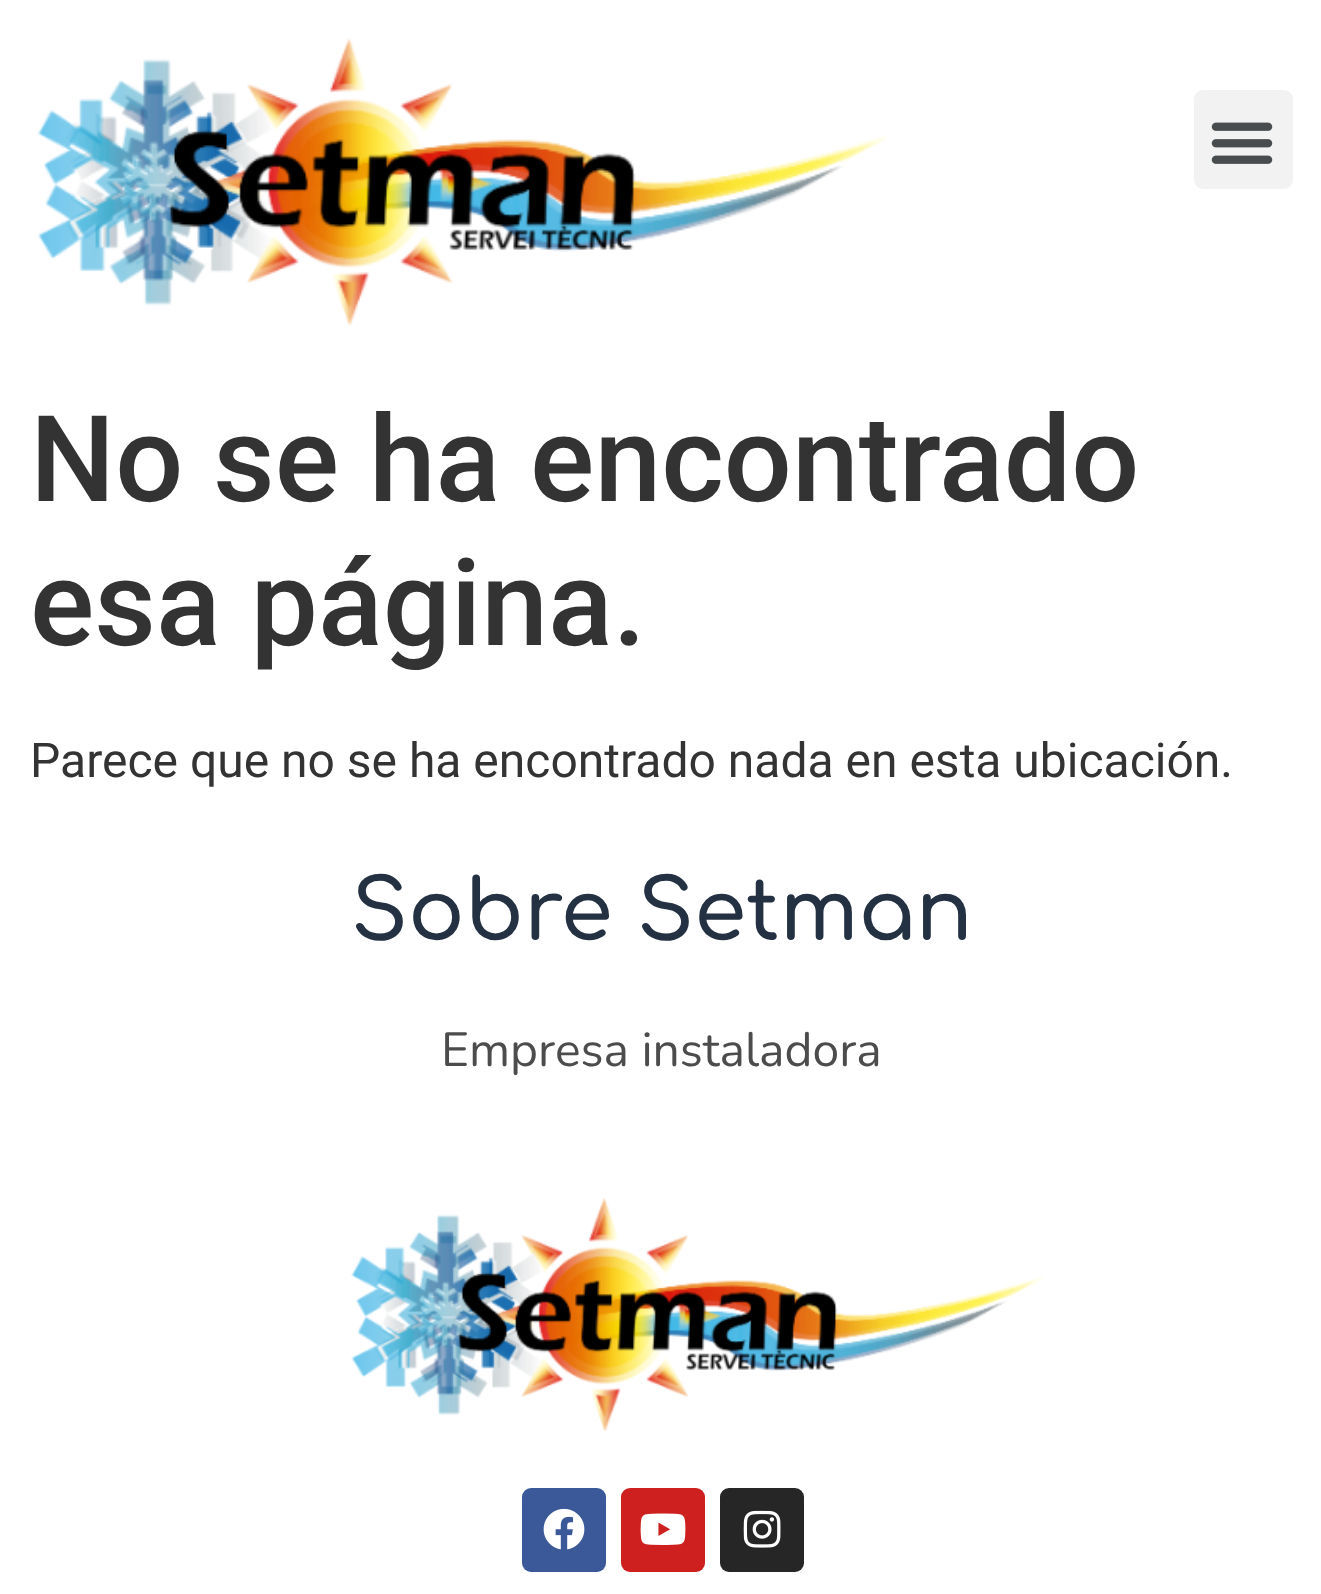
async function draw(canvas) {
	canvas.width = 1321;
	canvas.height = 1594;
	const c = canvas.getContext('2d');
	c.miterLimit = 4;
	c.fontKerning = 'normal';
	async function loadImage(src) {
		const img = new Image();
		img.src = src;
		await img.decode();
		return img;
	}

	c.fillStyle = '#fff';
	c.fillRect(0, 0, 1321, 1594);
	c.drawImage(await loadImage('img1.png'), 37, 38, 851, 288);
	c.fillStyle = '#f2f2f2';
	c.beginPath();
	c.roundRect(1194, 90, 99, 99, 9);
	c.fill();
	c.drawImage(await loadImage('img2.png'), 1211, 122, 62, 42);
	c.font = '500 120px Roboto';
	c.fillStyle = '#333';
	c.fillText('No se ha encontrado', 30, 501);
	c.fillText('esa página.', 30, 645);
	c.font = '48px Roboto';
	c.fillText('Parece que no se ha encontrado nada en esta ubicación.', 30, 777);
	c.font = '600 84px Comfortaa';
	c.fillStyle = '#233142';
	c.fillText('Sobre Setman', 351, 940);
	c.font = '48px Nunito';
	c.fillStyle = '#4c4c4c';
	c.fillText('Empresa instaladora', 441, 1066);
	c.drawImage(await loadImage('img3.png'), 351, 1197, 692, 234);
	c.fillStyle = '#3b5998';
	c.beginPath();
	c.roundRect(522, 1488, 84, 84, 9);
	c.fill();
	c.drawImage(await loadImage('img4.png'), 543, 1508, 42, 42);
	c.fillStyle = '#cd201f';
	c.beginPath();
	c.roundRect(621, 1488, 84, 84, 9);
	c.fill();
	c.drawImage(await loadImage('img5.png'), 640, 1513, 46, 32);
	c.fillStyle = '#262626';
	c.beginPath();
	c.roundRect(720, 1488, 84, 84, 9);
	c.fill();
	c.drawImage(await loadImage('img6.png'), 743, 1510, 38, 38);
}

draw(document.querySelector('canvas'));
